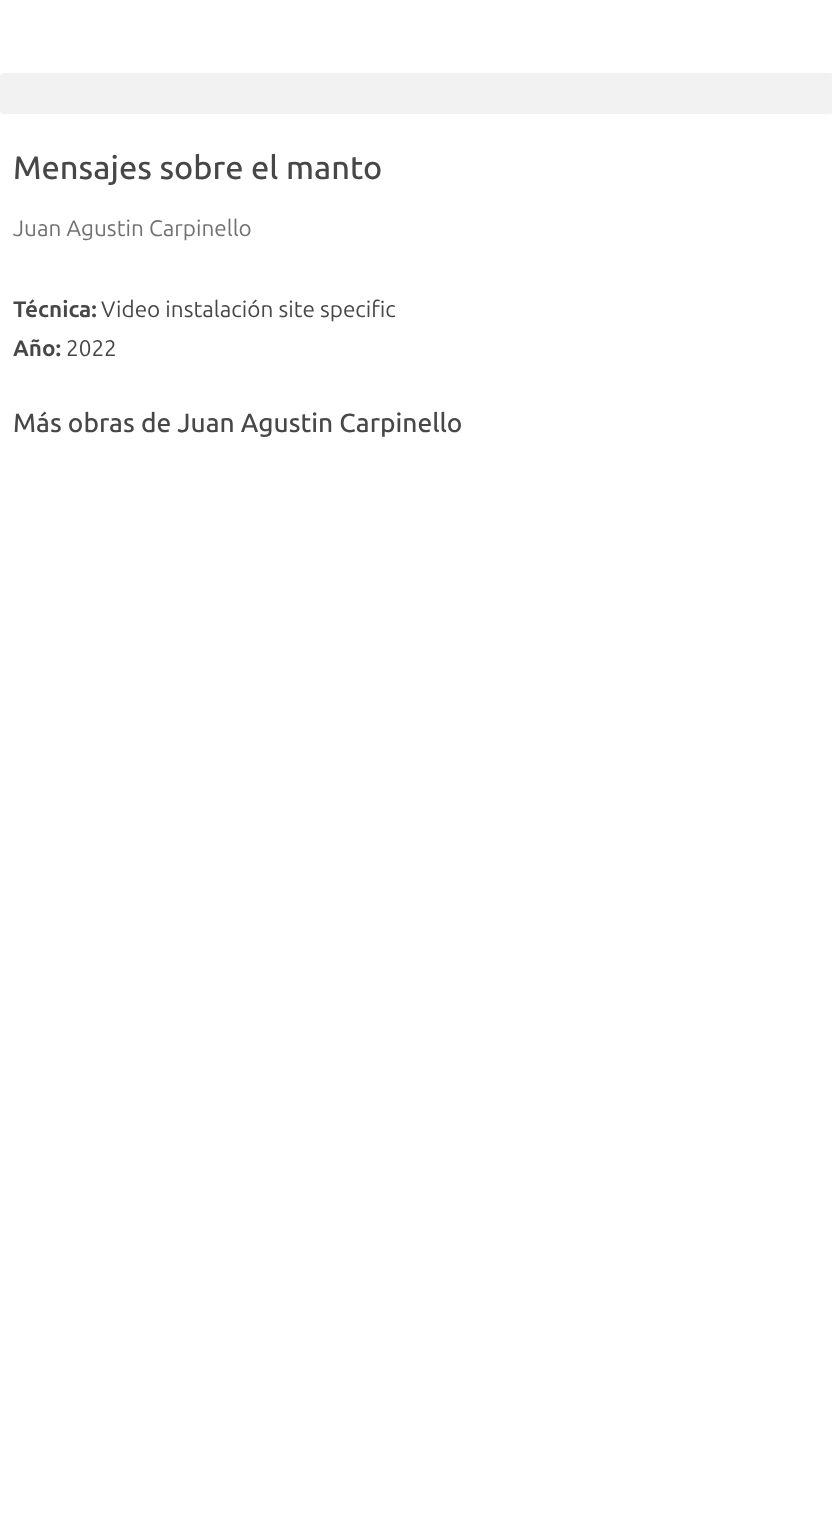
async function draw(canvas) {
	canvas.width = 832;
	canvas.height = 1522;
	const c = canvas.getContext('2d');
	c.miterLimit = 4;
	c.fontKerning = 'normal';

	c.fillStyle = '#fff';
	c.fillRect(0, 0, 832, 1522);
	c.fillStyle = '#f2f2f2';
	c.beginPath();
	c.roundRect(0, 73, 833, 41, 4);
	c.fill();
	c.font = '500 32.5px Ubuntu';
	c.fillStyle = '#474747';
	c.fillText('Mensajes sobre el manto', 13, 179);
	c.font = '22.5px Ubuntu';
	c.fillStyle = '#717171';
	c.fillText('Juan Agustin Carpinello', 13, 236);
	c.font = 'bold 22.5px Ubuntu';
	c.fillStyle = '#474747';
	c.fillText('Técnica:', 13, 317);
	c.font = '22.5px Ubuntu';
	c.fillText('Video instalación site specific', 101, 317);
	c.font = 'bold 22.5px Ubuntu';
	c.fillText('Año:', 13, 356);
	c.font = '22.5px Ubuntu';
	c.fillText('2022', 66, 356);
	c.font = '500 26.25px Ubuntu';
	c.fillText('Más obras de Juan Agustin Carpinello', 13, 432);
}

draw(document.querySelector('canvas'));
